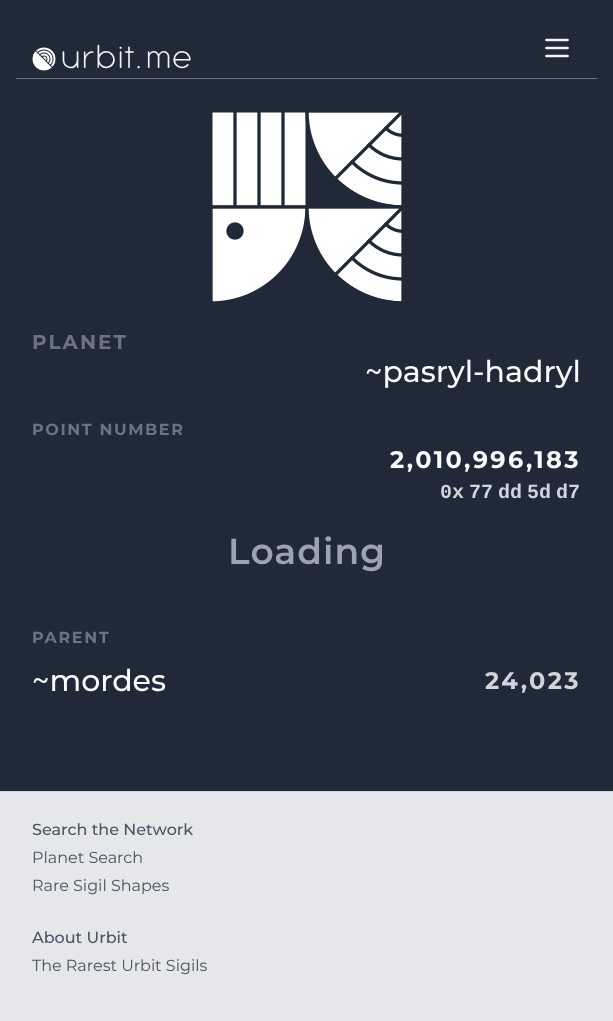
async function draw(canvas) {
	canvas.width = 613;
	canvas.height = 1021;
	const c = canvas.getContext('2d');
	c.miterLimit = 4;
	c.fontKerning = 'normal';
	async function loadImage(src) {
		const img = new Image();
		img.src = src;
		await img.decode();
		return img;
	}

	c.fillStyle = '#1f2937';
	c.fillRect(0, 0, 613, 1021);
	c.fillStyle = '#6b7280';
	c.fillRect(16, 78, 581, 1);
	c.drawImage(await loadImage('img1.png'), 32, 47, 24, 24);
	c.font = '200 36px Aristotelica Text';
	c.fillStyle = '#f3f4f6';
	c.fillText('urbit.me', 60, 68);
	c.beginPath();
	c.moveTo(546.5, 40);
	c.lineTo(567.5, 40);
	c.moveTo(546.5, 48);
	c.lineTo(567.5, 48);
	c.moveTo(546.5, 56);
	c.lineTo(567.5, 56);
	c.strokeStyle = '#f3f4f6';
	c.lineWidth = 2.7;
	c.lineCap = 'round';
	c.lineJoin = 'round';
	c.stroke();
	c.drawImage(await loadImage('img2.png'), 212, 112, 190, 190);
	c.letterSpacing = '2px';
	c.font = 'bold 20px Montserrat';
	c.fillStyle = '#6b7280';
	c.fillText('PLANET', 32, 349);
	c.letterSpacing = '0px';
	c.font = '500 30px Montserrat';
	c.fillStyle = '#f9fafb';
	c.fillText('~pasryl-hadryl', 365, 382);
	c.letterSpacing = '1.6px';
	c.font = 'bold 16px Montserrat';
	c.fillStyle = '#6b7280';
	c.fillText('POINT NUMBER', 32, 435);
	c.letterSpacing = '2.4px';
	c.font = 'bold 24px Montserrat';
	c.fillStyle = '#f9fafb';
	c.fillText('2,010,996,183', 390, 468);
	c.letterSpacing = '0px';
	c.font = 'bold 20px Liberation Mono';
	c.fillStyle = '#d1d5db';
	for (const [text, x, y] of [
		['0x', 440, 498],
		['77', 469, 498],
		['dd', 498, 498],
		['5d', 527, 498],
		['d7', 556, 498],
	]) {
		c.fillText(text, x, y);
	}
	c.letterSpacing = '1px';
	c.font = '600 36px Montserrat';
	c.fillStyle = '#9ca3af';
	c.fillText('Loading', 228, 564);
	c.letterSpacing = '1.6px';
	c.font = 'bold 16px Montserrat';
	c.fillStyle = '#6b7280';
	c.fillText('PARENT', 32, 643);
	c.letterSpacing = '0px';
	c.font = '500 30px Montserrat';
	c.fillStyle = '#f9fafb';
	c.fillText('~mordes', 32, 691);
	c.letterSpacing = '2.4px';
	c.font = 'bold 24px Montserrat';
	c.fillStyle = '#d1d5db';
	c.fillText('24,023', 485, 689);
	c.fillStyle = '#e5e7eb';
	c.fillRect(0, 792, 613, 229);
	c.fillStyle = '#d1d5db';
	c.fillRect(0, 791, 613, 1);
	c.letterSpacing = '0px';
	c.font = '500 16px Montserrat';
	c.fillStyle = '#4b5563';
	c.fillText('Search the Network', 32, 835);
	c.font = '16px Montserrat';
	c.fillText('Planet Search', 32, 863);
	c.fillText('Rare Sigil Shapes', 32, 891);
	c.font = '500 16px Montserrat';
	c.fillText('About Urbit', 32, 943);
	c.font = '16px Montserrat';
	c.fillText('The Rarest Urbit Sigils', 32, 971);
}

draw(document.querySelector('canvas'));
